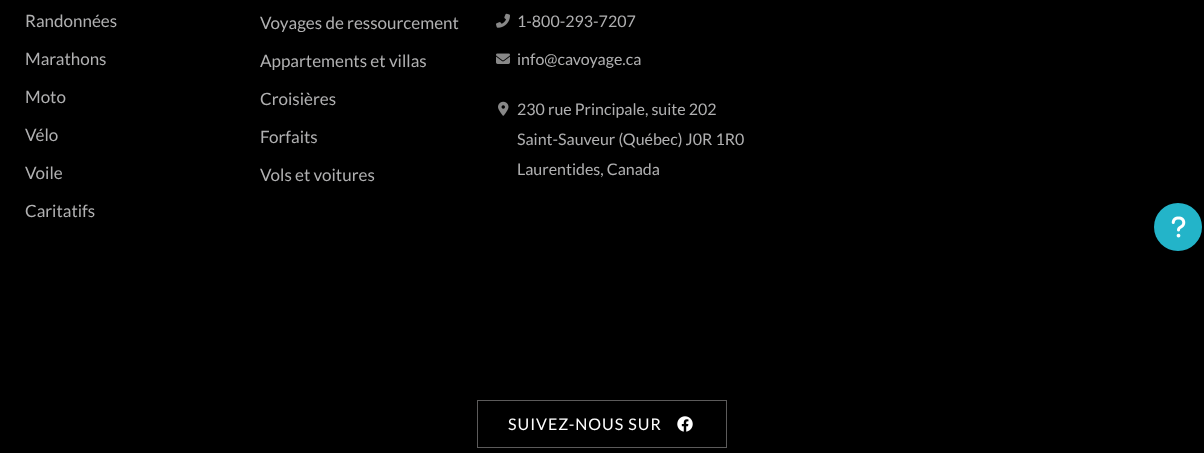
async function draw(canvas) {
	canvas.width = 1204;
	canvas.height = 453;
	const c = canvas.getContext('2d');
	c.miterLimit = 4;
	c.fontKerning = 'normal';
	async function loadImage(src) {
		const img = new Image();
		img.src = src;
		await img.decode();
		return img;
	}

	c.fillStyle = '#000';
	c.fillRect(0, 0, 1204, 453);
	c.font = '17px Lato';
	c.fillStyle = '#b0b0b1';
	for (const [text, x, y] of [
		['Randonnées', 25, 27],
		['Marathons', 25, 65],
		['Moto', 25, 103],
		['Vélo', 25, 141],
		['Voile', 25, 179],
		['Caritatifs', 25, 217],
		['Voyages de ressourcement', 260, 29],
		['Appartements et villas', 260, 67],
		['Croisières', 260, 105],
		['Forfaits', 260, 143],
		['Vols et voitures', 260, 181],
	]) {
		c.fillText(text, x, y);
	}
	c.drawImage(await loadImage('img1.png'), 496, 13, 14, 15);
	c.font = '16px Lato';
	c.fillText('1-800-293-7207', 517, 27);
	c.drawImage(await loadImage('img2.png'), 496, 53, 14, 11);
	c.fillText('info@cavoyage.ca', 517, 65);
	c.drawImage(await loadImage('img3.png'), 498, 101, 11, 15);
	for (const [text, x, y] of [
		['230 rue Principale, suite 202', 517, 115],
		['Saint-Sauveur (Québec) J0R 1R0', 517, 145],
		['Laurentides, Canada', 517, 175],
	]) {
		c.fillText(text, x, y);
	}
	c.strokeStyle = '#5c5b5b';
	c.strokeRect(477.5, 400.5, 249, 47);
	c.letterSpacing = '1px';
	c.fillStyle = '#fff';
	c.fillText('SUIVEZ-NOUS SUR', 508, 430);
	c.drawImage(await loadImage('img4.png'), 677, 416, 16, 16);
	c.fillStyle = '#23b4c9';
	c.beginPath();
	c.arc(1178, 227, 24, 0, 2 * Math.PI);
	c.fill();
	c.drawImage(await loadImage('img5.png'), 1171, 216, 15, 22);
}

draw(document.querySelector('canvas'));
